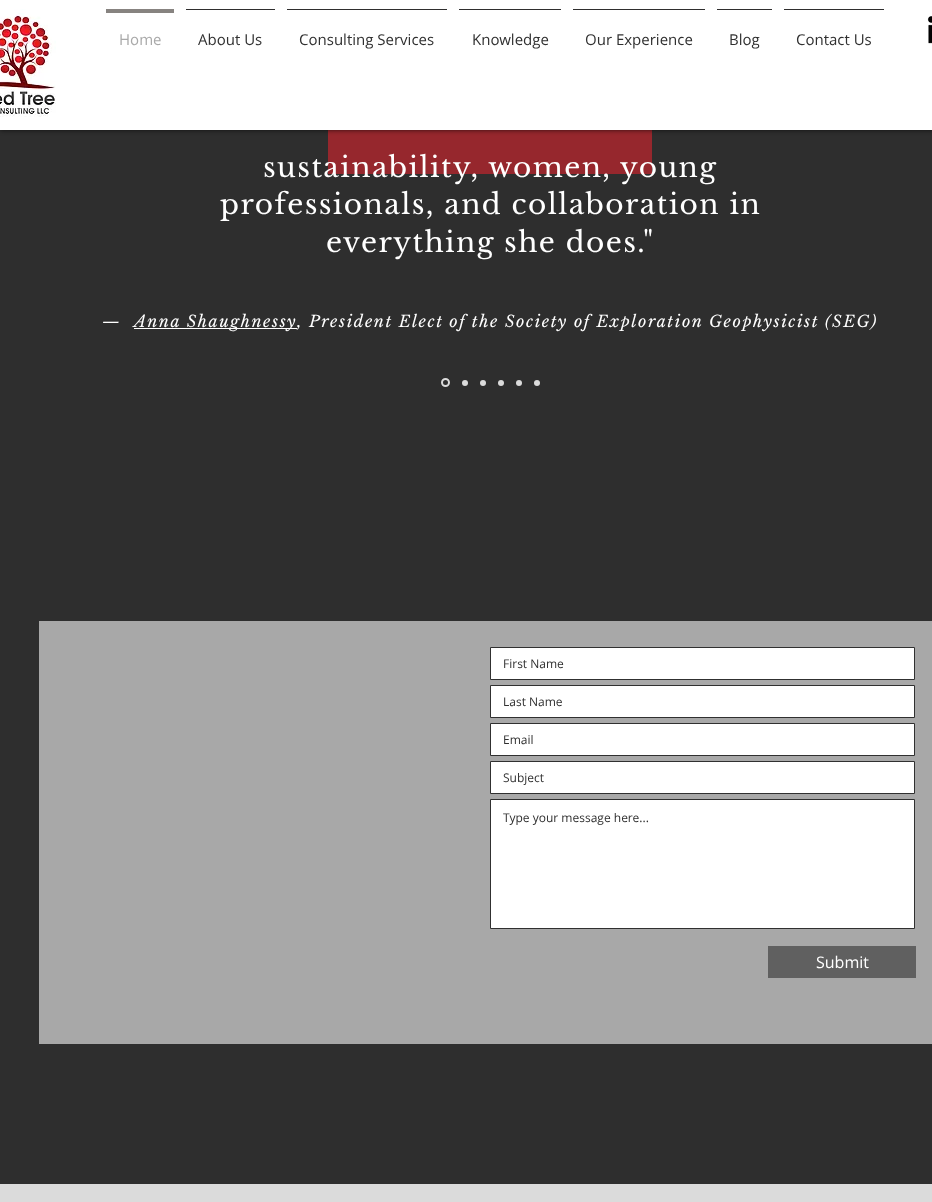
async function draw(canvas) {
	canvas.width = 932;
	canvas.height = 1202;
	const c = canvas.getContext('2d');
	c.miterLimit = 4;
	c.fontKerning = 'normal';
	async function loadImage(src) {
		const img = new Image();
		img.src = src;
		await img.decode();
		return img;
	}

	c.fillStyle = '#2e2e2e';
	c.fillRect(0, 0, 932, 1202);
	c.fillStyle = '#96272d';
	c.fillRect(328, 130, 324, 44);
	c.fillStyle = '#000000b3';
	c.filter = 'blur(2.5px)';
	c.beginPath();
	c.rect(0, 0, 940, 130);
	c.fill();
	c.filter = 'none';
	c.fillStyle = '#fff';
	c.fillRect(0, 0, 932, 130);
	c.drawImage(await loadImage('img1.png'), 0, 9, 56, 108);
	c.fillStyle = '#878380';
	c.fillRect(106, 9, 68, 4);
	c.font = '15px Open Sans';
	c.fillStyle = '#a9a9a9';
	c.fillText('Home', 119, 45);
	c.fillStyle = '#2f2e2e';
	c.fillRect(186, 9, 89, 1);
	c.fillStyle = '#303030';
	c.fillText('About Us', 198, 45);
	c.fillStyle = '#2f2e2e';
	c.fillRect(287, 9, 160, 1);
	c.fillStyle = '#303030';
	c.fillText('Consulting Services', 299, 45);
	c.fillStyle = '#2f2e2e';
	c.fillRect(459, 9, 102, 1);
	c.fillStyle = '#303030';
	c.fillText('Knowledge', 472, 45);
	c.fillStyle = '#2f2e2e';
	c.fillRect(573, 9, 132, 1);
	c.fillStyle = '#303030';
	c.fillText('Our Experience', 585, 45);
	c.fillStyle = '#2f2e2e';
	c.fillRect(717, 9, 55, 1);
	c.fillStyle = '#303030';
	c.fillText('Blog', 729, 45);
	c.fillStyle = '#2f2e2e';
	c.fillRect(784, 9, 100, 1);
	c.fillStyle = '#303030';
	c.fillText('Contact Us', 796, 45);
	c.drawImage(await loadImage('img2.png'), 927, 16, 5, 28);
	c.letterSpacing = '1.4px';
	c.font = '28px Libre Baskerville';
	c.fillStyle = '#fff';
	for (const [text, x, y] of [
		['sustainability, women, young', 263, 177],
		['professionals, and collaboration in', 220, 214],
		['everything she does."', 326, 252],
	]) {
		c.fillText(text, x, y);
	}
	c.letterSpacing = '1.6px';
	c.font = 'italic 16px Libre Baskerville';
	c.fillText('—', 102, 327);
	c.fillRect(134, 328, 163, 1);
	c.fillText('Anna Shaughnessy, President Elect of the Society of Exploration Geophysicist (SEG)', 134, 327);
	c.beginPath();
	c.arc(445.5, 382.5, 3.5, 0, 2 * Math.PI);
	c.strokeStyle = '#dbdbdb';
	c.lineWidth = 2;
	c.stroke();
	c.fillStyle = '#dbdbdb';
	c.beginPath();
	c.arc(465, 383, 3, 0, 2 * Math.PI);
	c.fill();
	c.beginPath();
	c.arc(483, 383, 3, 0, 2 * Math.PI);
	c.fill();
	c.beginPath();
	c.arc(501, 383, 3, 0, 2 * Math.PI);
	c.fill();
	c.beginPath();
	c.arc(519, 383, 3, 0, 2 * Math.PI);
	c.fill();
	c.beginPath();
	c.arc(537, 383, 3, 0, 2 * Math.PI);
	c.fill();
	c.fillStyle = '#a8a8a8';
	c.fillRect(39, 621, 893, 423);
	c.fillStyle = '#fff';
	c.beginPath();
	c.rect(490.5, 647.5, 424, 32);
	c.fill();
	c.strokeStyle = '#303030';
	c.lineWidth = 1;
	c.stroke();
	c.letterSpacing = '0px';
	c.font = '12px Open Sans';
	c.fillStyle = '#303030';
	c.fillText('First Name', 503, 668);
	c.fillStyle = '#fff';
	c.beginPath();
	c.rect(490.5, 685.5, 424, 32);
	c.fill();
	c.stroke();
	c.fillStyle = '#303030';
	c.fillText('Last Name', 503, 706);
	c.fillStyle = '#fff';
	c.beginPath();
	c.rect(490.5, 723.5, 424, 32);
	c.fill();
	c.stroke();
	c.fillStyle = '#303030';
	c.fillText('Email', 503, 744);
	c.fillStyle = '#fff';
	c.beginPath();
	c.rect(490.5, 761.5, 424, 32);
	c.fill();
	c.stroke();
	c.fillStyle = '#303030';
	c.fillText('Subject', 503, 782);
	c.fillStyle = '#fff';
	c.beginPath();
	c.rect(490.5, 799.5, 424, 129);
	c.fill();
	c.stroke();
	c.fillStyle = '#303030';
	c.fillText('Type your message here...', 503, 822);
	c.fillStyle = '#606060';
	c.fillRect(768, 946, 148, 32);
	c.font = '16px Open Sans';
	c.fillStyle = '#fff';
	c.fillText('Submit', 816, 968);
	c.fillStyle = '#dbdbdb';
	c.fillRect(0, 1184, 932, 18);
}

draw(document.querySelector('canvas'));
